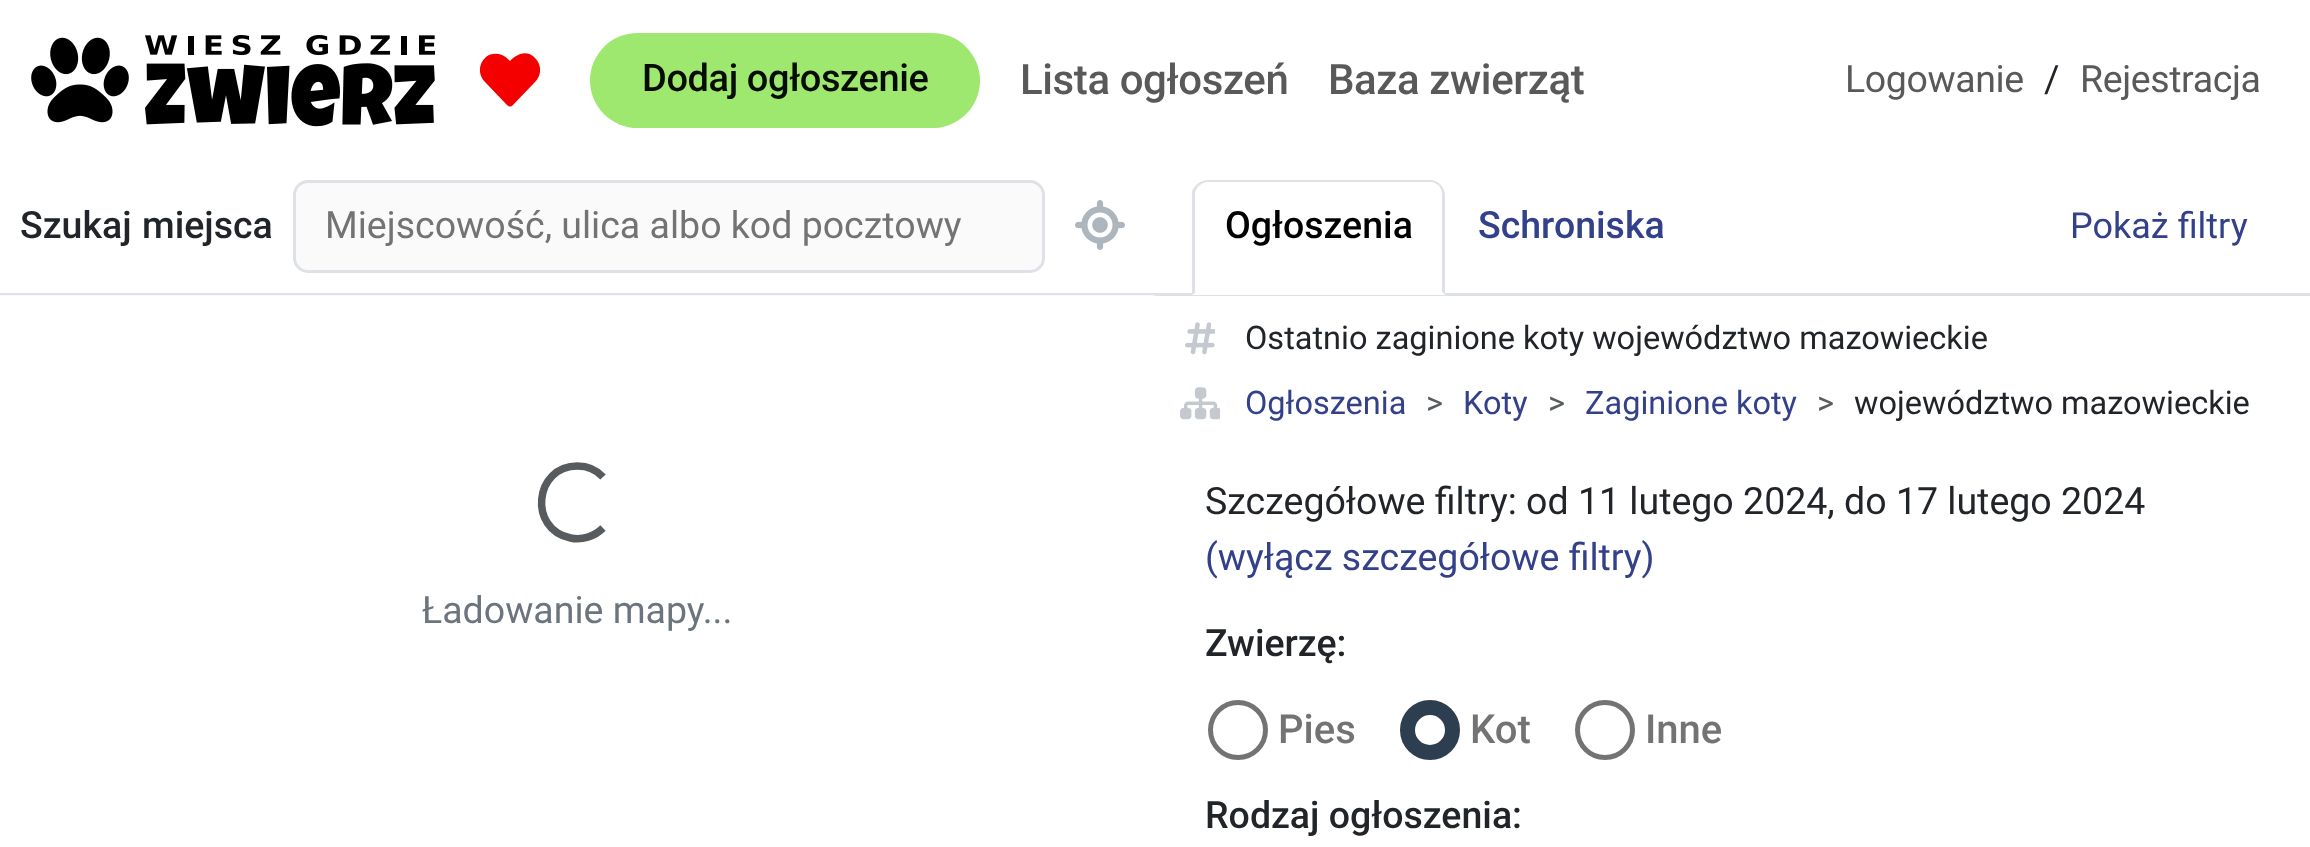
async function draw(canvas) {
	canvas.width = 2310;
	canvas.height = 847;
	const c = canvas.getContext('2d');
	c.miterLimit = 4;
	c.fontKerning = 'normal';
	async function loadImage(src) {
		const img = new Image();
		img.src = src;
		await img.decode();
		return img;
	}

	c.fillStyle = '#fff';
	c.fillRect(0, 0, 2310, 847);
	c.drawImage(await loadImage('img1.png'), 31, 37, 98, 86);
	c.drawImage(await loadImage('img2.png'), 145, 35, 290, 92);
	c.save();
	c.beginPath();
	c.rect(480, 50, 60, 60);
	c.clip();
	c.fillStyle = '#f50000';
	c.beginPath();
	c.moveTo(534, 57);
	c.bezierCurveTo(526, 50, 517, 54, 510, 61);
	c.lineTo(508, 59);
	c.bezierCurveTo(502, 53, 492, 52, 486, 57);
	c.bezierCurveTo(478, 64, 478, 75, 485, 82);
	c.lineTo(507, 105);
	c.bezierCurveTo(509, 107, 511, 107, 513, 105);
	c.lineTo(535, 82);
	c.bezierCurveTo(542, 75, 542, 64, 534, 57);
	c.closePath();
	c.fill();
	c.restore();
	c.fillStyle = '#9fe870';
	c.beginPath();
	c.roundRect(590, 33, 390, 95, 47.5);
	c.fill();
	c.letterSpacing = '-0.4px';
	c.font = '500 38px Roboto';
	c.fillStyle = '#060c01';
	c.fillText('Dodaj ogłoszenie', 642, 91);
	c.font = '500 42px Roboto';
	c.fillStyle = '#595959';
	c.fillText('Lista ogłoszeń', 1020, 94);
	c.fillText('Baza zwierząt', 1328, 94);
	c.font = '37.5px Roboto';
	c.fillText('Logowanie', 1845, 92);
	c.letterSpacing = '0px';
	c.fillStyle = '#212529';
	c.fillText('/', 2044, 92);
	c.letterSpacing = '-0.4px';
	c.fillStyle = '#595959';
	c.fillText('Rejestracja', 2080, 92);
	c.fillStyle = '#dee2e6';
	c.fillRect(0, 293, 1155, 2);
	c.fillStyle = '#f5f6f8';
	c.fillRect(0, 295, 1155, 1);
	c.letterSpacing = '0px';
	c.font = '500 37.5px Roboto';
	c.fillStyle = '#212529';
	c.fillText('Szukaj', 20, 238);
	c.fillText('miejsca', 142, 238);
	c.fillStyle = '#fafafa';
	c.beginPath();
	c.roundRect(294.5, 181.5, 749, 90, 13.5);
	c.fill();
	c.strokeStyle = '#dee2e6';
	c.lineWidth = 3;
	c.stroke();
	c.font = '37.5px Roboto';
	c.fillStyle = '#737373';
	c.fillText('Miejscowość, ulica albo kod pocztowy', 325, 238);
	c.drawImage(await loadImage('img3.png'), 1075, 200, 50, 50);
	c.beginPath();
	c.moveTo(603, 528);
	c.bezierCurveTo(594.5, 536.5, 582, 540.5, 570.5, 538);
	c.bezierCurveTo(528, 529.5, 534, 466, 577.5, 466);
	c.bezierCurveTo(587, 466, 596.5, 470, 603, 477);
	c.strokeStyle = '#585b5e';
	c.lineWidth = 7.5;
	c.stroke();
	c.fillStyle = '#6c757d';
	c.fillText('Ładowanie mapy...', 422, 623);
	c.fillStyle = '#dee2e6';
	c.fillRect(1155, 293, 1155, 3);
	c.beginPath();
	c.moveTo(1208, 180);
	c.bezierCurveTo(1204, 180, 1200, 182, 1197, 184);
	c.lineTo(1199, 186);
	c.bezierCurveTo(1201, 184, 1204, 182, 1208, 182);
	c.lineTo(1430, 182);
	c.bezierCurveTo(1434, 182, 1437, 184, 1439, 186);
	c.lineTo(1440, 184);
	c.bezierCurveTo(1438, 182, 1434, 180, 1430, 180);
	c.closePath();
	c.fill();
	c.beginPath();
	c.moveTo(1445, 295);
	c.lineTo(1445, 195);
	c.bezierCurveTo(1445, 191, 1443, 187, 1440, 184);
	c.lineTo(1439, 186);
	c.bezierCurveTo(1441, 188, 1442, 192, 1442, 195);
	c.lineTo(1442, 292);
	c.closePath();
	c.fill();
	c.fillStyle = '#fff';
	c.beginPath();
	c.moveTo(1445, 295);
	c.lineTo(1442, 292);
	c.lineTo(1196, 292);
	c.lineTo(1192, 295);
	c.closePath();
	c.fill();
	c.fillStyle = '#dee2e6';
	c.beginPath();
	c.moveTo(1192, 295);
	c.lineTo(1192, 191);
	c.bezierCurveTo(1193, 189, 1195, 186, 1197, 184);
	c.lineTo(1199, 186);
	c.bezierCurveTo(1196, 188, 1195, 192, 1195, 195);
	c.lineTo(1195, 292);
	c.lineTo(1196, 292);
	c.closePath();
	c.fill();
	c.font = '500 37.5px Roboto';
	c.fillStyle = '#000';
	c.fillText('Ogłoszenia', 1225, 238);
	c.fillStyle = '#33408a';
	c.fillText('Schroniska', 1478, 238);
	c.font = '36px Roboto';
	c.fillText('Pokaż filtry', 2070, 238);
	c.drawImage(await loadImage('img4.png'), 1185, 322, 30, 33);
	c.font = '32.5px Roboto';
	c.fillStyle = '#212529';
	c.fillText('Ostatnio zaginione koty województwo mazowieckie', 1245, 349);
	c.drawImage(await loadImage('img5.png'), 1180, 387, 40, 33);
	c.fillStyle = '#33408a';
	c.fillText('Ogłoszenia', 1245, 414);
	c.fillStyle = '#595c5f';
	c.fillText('>', 1426, 414);
	c.fillStyle = '#33408a';
	c.fillText('Koty', 1463, 414);
	c.fillStyle = '#595c5f';
	c.fillText('>', 1548, 414);
	c.fillStyle = '#33408a';
	c.fillText('Zaginione koty', 1585, 414);
	c.fillStyle = '#595c5f';
	c.fillText('>', 1817, 414);
	c.fillStyle = '#212529';
	c.fillText('województwo mazowieckie', 1854, 414);
	c.font = '37.5px Roboto';
	c.fillText('Szczegółowe filtry: od 11 lutego 2024, do 17 lutego 2024', 1205, 514);
	c.fillStyle = '#33408a';
	c.fillText('(wyłącz szczegółowe filtry)', 1205, 570);
	c.font = '500 37.5px Roboto';
	c.fillStyle = '#212529';
	c.fillText('Zwierzę:', 1205, 656);
	c.beginPath();
	c.arc(1238, 730, 27.5, 0, 2 * Math.PI);
	c.strokeStyle = '#737373';
	c.lineWidth = 5;
	c.stroke();
	c.font = '500 40px Roboto';
	c.fillStyle = '#737373';
	c.fillText('Pies', 1278, 743);
	c.beginPath();
	c.arc(1430, 730, 22.5, 0, 2 * Math.PI);
	c.strokeStyle = '#2c3e50';
	c.lineWidth = 15;
	c.stroke();
	c.fillText('Kot', 1470, 743);
	c.beginPath();
	c.arc(1605, 730, 27.5, 0, 2 * Math.PI);
	c.strokeStyle = '#737373';
	c.lineWidth = 5;
	c.stroke();
	c.fillText('Inne', 1645, 743);
	c.font = '500 37.5px Roboto';
	c.fillStyle = '#212529';
	c.fillText('Rodzaj ogłoszenia:', 1205, 828);
}

draw(document.querySelector('canvas'));
